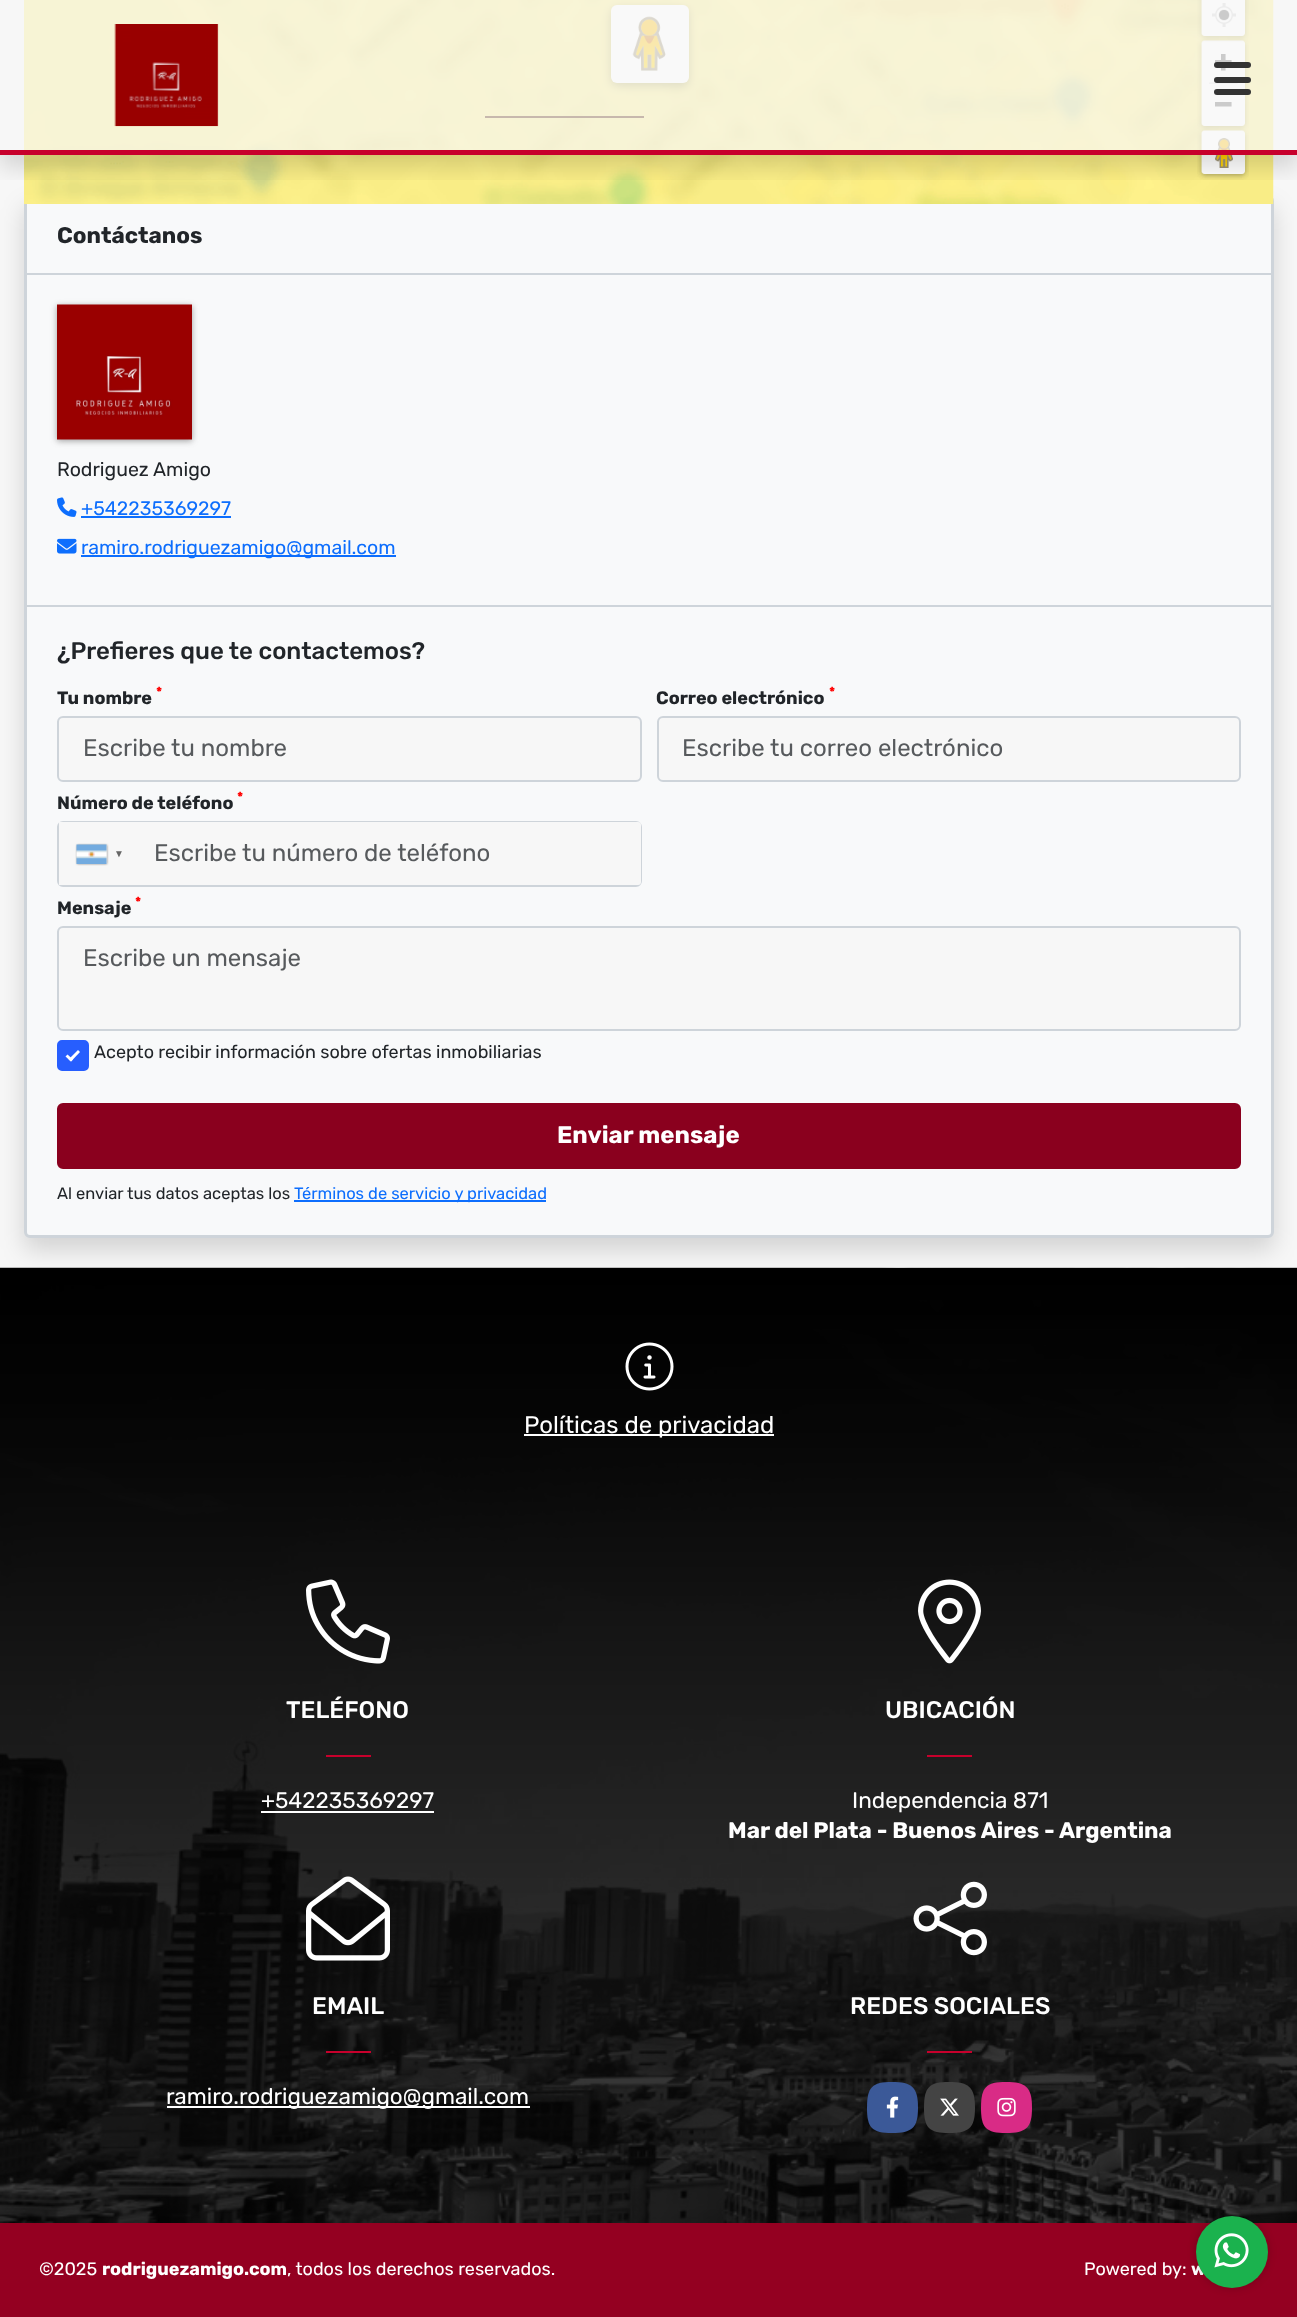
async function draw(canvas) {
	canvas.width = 1297;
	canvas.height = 2317;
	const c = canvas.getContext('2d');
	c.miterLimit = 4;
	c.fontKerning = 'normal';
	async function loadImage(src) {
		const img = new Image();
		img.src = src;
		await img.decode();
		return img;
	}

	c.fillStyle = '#f7f7f7';
	c.fillRect(0, 0, 1297, 2317);
	c.fillStyle = '#00000026';
	c.filter = 'blur(12px)';
	c.beginPath();
	c.roundRect(24, 207, 1250, 1043, 6);
	c.fill();
	c.filter = 'none';
	c.fillStyle = '#f8f9fa';
	c.beginPath();
	c.roundRect(25.5, 196.5, 1247, 1040, 4.5);
	c.fill();
	c.strokeStyle = '#ced4da';
	c.lineWidth = 3;
	c.stroke();
	c.drawImage(await loadImage('img2.png'), 24, 0, 1250, 204);
	c.fillStyle = '#0000004d';
	c.filter = 'blur(5px)';
	c.beginPath();
	c.roundRect(611, 8, 78, 78, 6);
	c.fill();
	c.filter = 'none';
	c.fillStyle = '#fff';
	c.beginPath();
	c.roundRect(611, 5, 78, 78, 6);
	c.fill();
	c.drawImage(await loadImage('img3.png'), 632, 16, 34, 55);
	c.fillStyle = '#582500';
	c.fillRect(485, 116, 159, 2);
	c.drawImage(await loadImage('img4.png'), 1197, 0, 52, 180);
	c.save();
	c.beginPath();
	c.rect(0, 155, 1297, 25);
	c.clip();
	c.fillStyle = '#00000026';
	c.filter = 'blur(12px)';
	c.beginPath();
	c.rect(0, 12, 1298, 155);
	c.fill();
	c.filter = 'none';
	c.restore();
	c.fillStyle = '#f7f7f7b3';
	c.fillRect(24, 0, 1250, 150);
	c.fillStyle = '#c7002c';
	c.fillRect(0, 150, 1297, 5);
	c.drawImage(await loadImage('img1.png'), 114, 24, 105, 103);
	c.fillStyle = '#333';
	c.beginPath();
	c.roundRect(1214, 62, 37, 6, 3);
	c.fill();
	c.beginPath();
	c.roundRect(1214, 77, 37, 6, 3);
	c.fill();
	c.beginPath();
	c.roundRect(1214, 89, 37, 6, 3);
	c.fill();
	c.fillStyle = '#ced4da';
	c.fillRect(27, 273, 1244, 2);
	c.font = 'bold 22.5px Rubik';
	c.fillStyle = '#212529';
	c.fillText('Contáctanos', 57, 243);
	c.fillStyle = '#ced4da';
	c.fillRect(27, 605, 1244, 2);
	c.fillStyle = '#47474780';
	c.filter = 'blur(3px)';
	c.beginPath();
	c.rect(57, 306, 135, 135);
	c.fill();
	c.filter = 'none';
	c.drawImage(await loadImage('img5.png'), 57, 304, 135, 136);
	c.font = '19.5px Rubik';
	c.fillStyle = '#212529';
	c.fillText('Rodriguez Amigo', 57, 476);
	c.drawImage(await loadImage('img6.png'), 57, 497, 20, 20);
	c.fillStyle = '#0d6efd';
	c.fillText('+542235369297', 81, 515);
	c.fillRect(81, 516, 150, 2);
	c.drawImage(await loadImage('img7.png'), 57, 538, 20, 16);
	c.fillRect(81, 555, 315, 2);
	c.fillText('ramiro.rodriguezamigo@gmail.com', 81, 554);
	c.font = '500 24px Rubik';
	c.fillStyle = '#212529';
	c.fillText('¿Prefieres que te contactemos?', 57, 659);
	c.font = 'bold 14px Rubik';
	c.fillStyle = '#f00';
	c.fillText('*', 156, 697);
	c.font = 'bold 18px Rubik';
	c.fillStyle = '#212529';
	c.fillText('Tu nombre', 57, 704);
	c.fillStyle = '#f7f7f7';
	c.beginPath();
	c.roundRect(58, 717, 583, 64, 5);
	c.fill();
	c.lineWidth = 2;
	c.stroke();
	c.font = '24px Rubik';
	c.fillStyle = '#575a5d';
	c.fillText('Escribe tu nombre', 83, 756);
	c.font = 'bold 14px Rubik';
	c.fillStyle = '#f00';
	c.fillText('*', 829, 697);
	c.font = 'bold 18px Rubik';
	c.fillStyle = '#212529';
	c.fillText('Correo electrónico', 656, 704);
	c.fillStyle = '#f7f7f7';
	c.beginPath();
	c.roundRect(658, 717, 582, 64, 5);
	c.fill();
	c.stroke();
	c.font = '24px Rubik';
	c.fillStyle = '#575a5d';
	c.fillText('Escribe tu correo electrónico', 682, 756);
	c.font = 'bold 14px Rubik';
	c.fillStyle = '#f00';
	c.fillText('*', 237, 802);
	c.font = 'bold 18px Rubik';
	c.fillStyle = '#212529';
	c.fillText('Número de teléfono', 57, 809);
	c.beginPath();
	c.roundRect(58, 822, 583, 64, 5);
	c.stroke();
	c.fillStyle = '#f7f7f7';
	c.fillRect(59, 822, 85, 63);
	c.fillStyle = '#888';
	c.filter = 'blur(1px)';
	c.beginPath();
	c.rect(77, 845, 30, 19);
	c.fill();
	c.filter = 'none';
	c.fillStyle = '#dbdbdb';
	c.fillRect(106, 845, 1, 19);
	c.drawImage(await loadImage('img8.png'), 76, 844, 31, 20);
	c.letterSpacing = '10px';
	c.font = 'bold 10px Liberation Sans';
	c.fillStyle = '#666';
	c.fillText('▼', 114, 857);
	c.fillStyle = '#f7f7f7';
	c.beginPath();
	c.roundRect(144, 822, 497, 63, [0, 3, 3, 0]);
	c.fill();
	c.letterSpacing = '0px';
	c.font = '24px Rubik';
	c.fillStyle = '#575a5d';
	c.fillText('Escribe tu número de teléfono', 154, 861);
	c.font = 'bold 14px Rubik';
	c.fillStyle = '#f00';
	c.fillText('*', 135, 907);
	c.font = 'bold 18px Rubik';
	c.fillStyle = '#212529';
	c.fillText('Mensaje', 57, 914);
	c.fillStyle = '#f7f7f7';
	c.beginPath();
	c.roundRect(58, 927, 1182, 103, 5);
	c.fill();
	c.stroke();
	c.font = '24px Rubik';
	c.fillStyle = '#575a5d';
	c.fillText('Escribe un mensaje', 83, 966);
	c.fillStyle = '#275efe';
	c.beginPath();
	c.roundRect(58, 1041, 30, 29, 4);
	c.fill();
	c.strokeStyle = '#275efe';
	c.stroke();
	c.fillStyle = '#fff';
	c.beginPath();
	c.moveTo(78, 1050);
	c.lineTo(80, 1052);
	c.lineTo(71, 1061.5);
	c.lineTo(68.5, 1059.5);
	c.closePath();
	c.fill();
	c.beginPath();
	c.moveTo(67.5, 1054.5);
	c.lineTo(73, 1059.5);
	c.lineTo(71, 1061.5);
	c.lineTo(65.5, 1056.5);
	c.closePath();
	c.fill();
	c.font = '18px Rubik';
	c.fillStyle = '#212529';
	c.fillText('Acepto recibir información sobre ofertas inmobiliarias', 94, 1058);
	c.fillStyle = '#8a001e';
	c.beginPath();
	c.roundRect(58, 1104, 1182, 64, 5);
	c.fill();
	c.strokeStyle = '#8a001e';
	c.stroke();
	c.font = 'bold 24px Rubik';
	c.fillStyle = '#fff';
	c.fillText('Enviar mensaje', 557, 1143);
	c.font = '16.5px Rubik';
	c.fillStyle = '#212529';
	c.fillText('Al enviar tus datos aceptas los', 57, 1199);
	c.fillStyle = '#0d6efd';
	c.fillRect(294, 1200, 252, 2);
	c.fillText('Términos de servicio y privacidad', 294, 1199);
	c.drawImage(await loadImage('img9.png'), 0, 1267, 1297, 956);
	c.drawImage(await loadImage('img10.png'), 625, 1342, 49, 49);
	c.fillStyle = '#fff';
	c.fillRect(524, 1434, 250, 2);
	c.font = '24px Rubik';
	c.fillText('Políticas de privacidad', 524, 1433);
	c.drawImage(await loadImage('img11.png'), 306, 1579, 84, 85);
	c.font = '500 24px Rubik';
	c.fillText('TELÉFONO', 286, 1718);
	c.fillStyle = '#c7002c';
	c.fillRect(326, 1755, 45, 2);
	c.font = '22.5px Rubik';
	c.fillStyle = '#fff';
	c.fillText('+542235369297', 261, 1808);
	c.fillRect(261, 1811, 173, 2);
	c.drawImage(await loadImage('img12.png'), 918, 1579, 63, 85);
	c.font = '500 24px Rubik';
	c.fillText('UBICACIÓN', 885, 1718);
	c.fillStyle = '#c7002c';
	c.fillRect(927, 1755, 45, 2);
	c.font = '22.5px Rubik';
	c.fillStyle = '#fff';
	c.fillText('Independencia 871', 852, 1808);
	c.font = 'bold 22.5px Rubik';
	c.fillText('Mar del Plata - Buenos Aires - Argentina', 728, 1838);
	c.drawImage(await loadImage('img13.png'), 306, 1876, 84, 85);
	c.font = '500 24px Rubik';
	c.fillText('EMAIL', 312, 2014);
	c.fillStyle = '#c7002c';
	c.fillRect(326, 2051, 45, 2);
	c.fillStyle = '#fff';
	c.fillRect(167, 2106, 363, 2);
	c.font = '22.5px Rubik';
	c.fillText('ramiro.rodriguezamigo@gmail.com', 166, 2104);
	c.drawImage(await loadImage('img14.png'), 913, 1881, 74, 75);
	c.font = '500 24px Rubik';
	c.fillText('REDES SOCIALES', 850, 2014);
	c.fillStyle = '#c7002c';
	c.fillRect(927, 2051, 45, 2);
	c.fillStyle = '#3b5998';
	c.beginPath();
	c.moveTo(892, 2082);
	c.bezierCurveTo(912, 2082, 918, 2087, 918, 2108);
	c.bezierCurveTo(918, 2128, 912, 2133, 892, 2133);
	c.bezierCurveTo(872, 2133, 867, 2128, 867, 2108);
	c.bezierCurveTo(867, 2087, 872, 2082, 892, 2082);
	c.closePath();
	c.fill();
	c.drawImage(await loadImage('img15.png'), 886, 2096, 13, 22);
	c.fillStyle = '#444';
	c.beginPath();
	c.moveTo(949, 2082);
	c.bezierCurveTo(969, 2082, 975, 2087, 975, 2108);
	c.bezierCurveTo(975, 2128, 969, 2133, 949, 2133);
	c.bezierCurveTo(929, 2133, 924, 2128, 924, 2108);
	c.bezierCurveTo(924, 2087, 929, 2082, 949, 2082);
	c.closePath();
	c.fill();
	c.drawImage(await loadImage('img16.png'), 940, 2098, 19, 18);
	c.fillStyle = '#d92b86';
	c.beginPath();
	c.moveTo(1006, 2082);
	c.bezierCurveTo(1026, 2082, 1032, 2087, 1032, 2108);
	c.bezierCurveTo(1032, 2128, 1026, 2133, 1006, 2133);
	c.bezierCurveTo(986, 2133, 981, 2128, 981, 2108);
	c.bezierCurveTo(981, 2087, 986, 2082, 1006, 2082);
	c.closePath();
	c.fill();
	c.drawImage(await loadImage('img17.png'), 997, 2097, 19, 20);
	c.fillStyle = '#940021';
	c.fillRect(0, 2223, 1297, 94);
	c.font = '18px Rubik';
	c.fillStyle = '#fff';
	c.fillText('©2025', 39, 2275);
	c.font = 'bold 18px Rubik';
	c.fillText('rodriguezamigo.com', 102, 2275);
	c.font = '18px Rubik';
	c.fillText(', todos los derechos reservados.', 287, 2275);
	c.fillText('Powered by:', 1084, 2275);
	c.font = 'bold 18px Rubik';
	c.fillText('w', 1191, 2275);
	c.fillStyle = '#00000033';
	c.filter = 'blur(4.5px)';
	c.beginPath();
	c.roundRect(1196, 2216, 72, 72, 36);
	c.fill();
	c.filter = 'none';
	c.fillStyle = '#1bb24e';
	c.beginPath();
	c.arc(1232, 2252, 36, 0, 2 * Math.PI);
	c.fill();
	c.drawImage(await loadImage('img18.png'), 1214, 2233, 35, 35);
}

draw(document.querySelector('canvas'));
